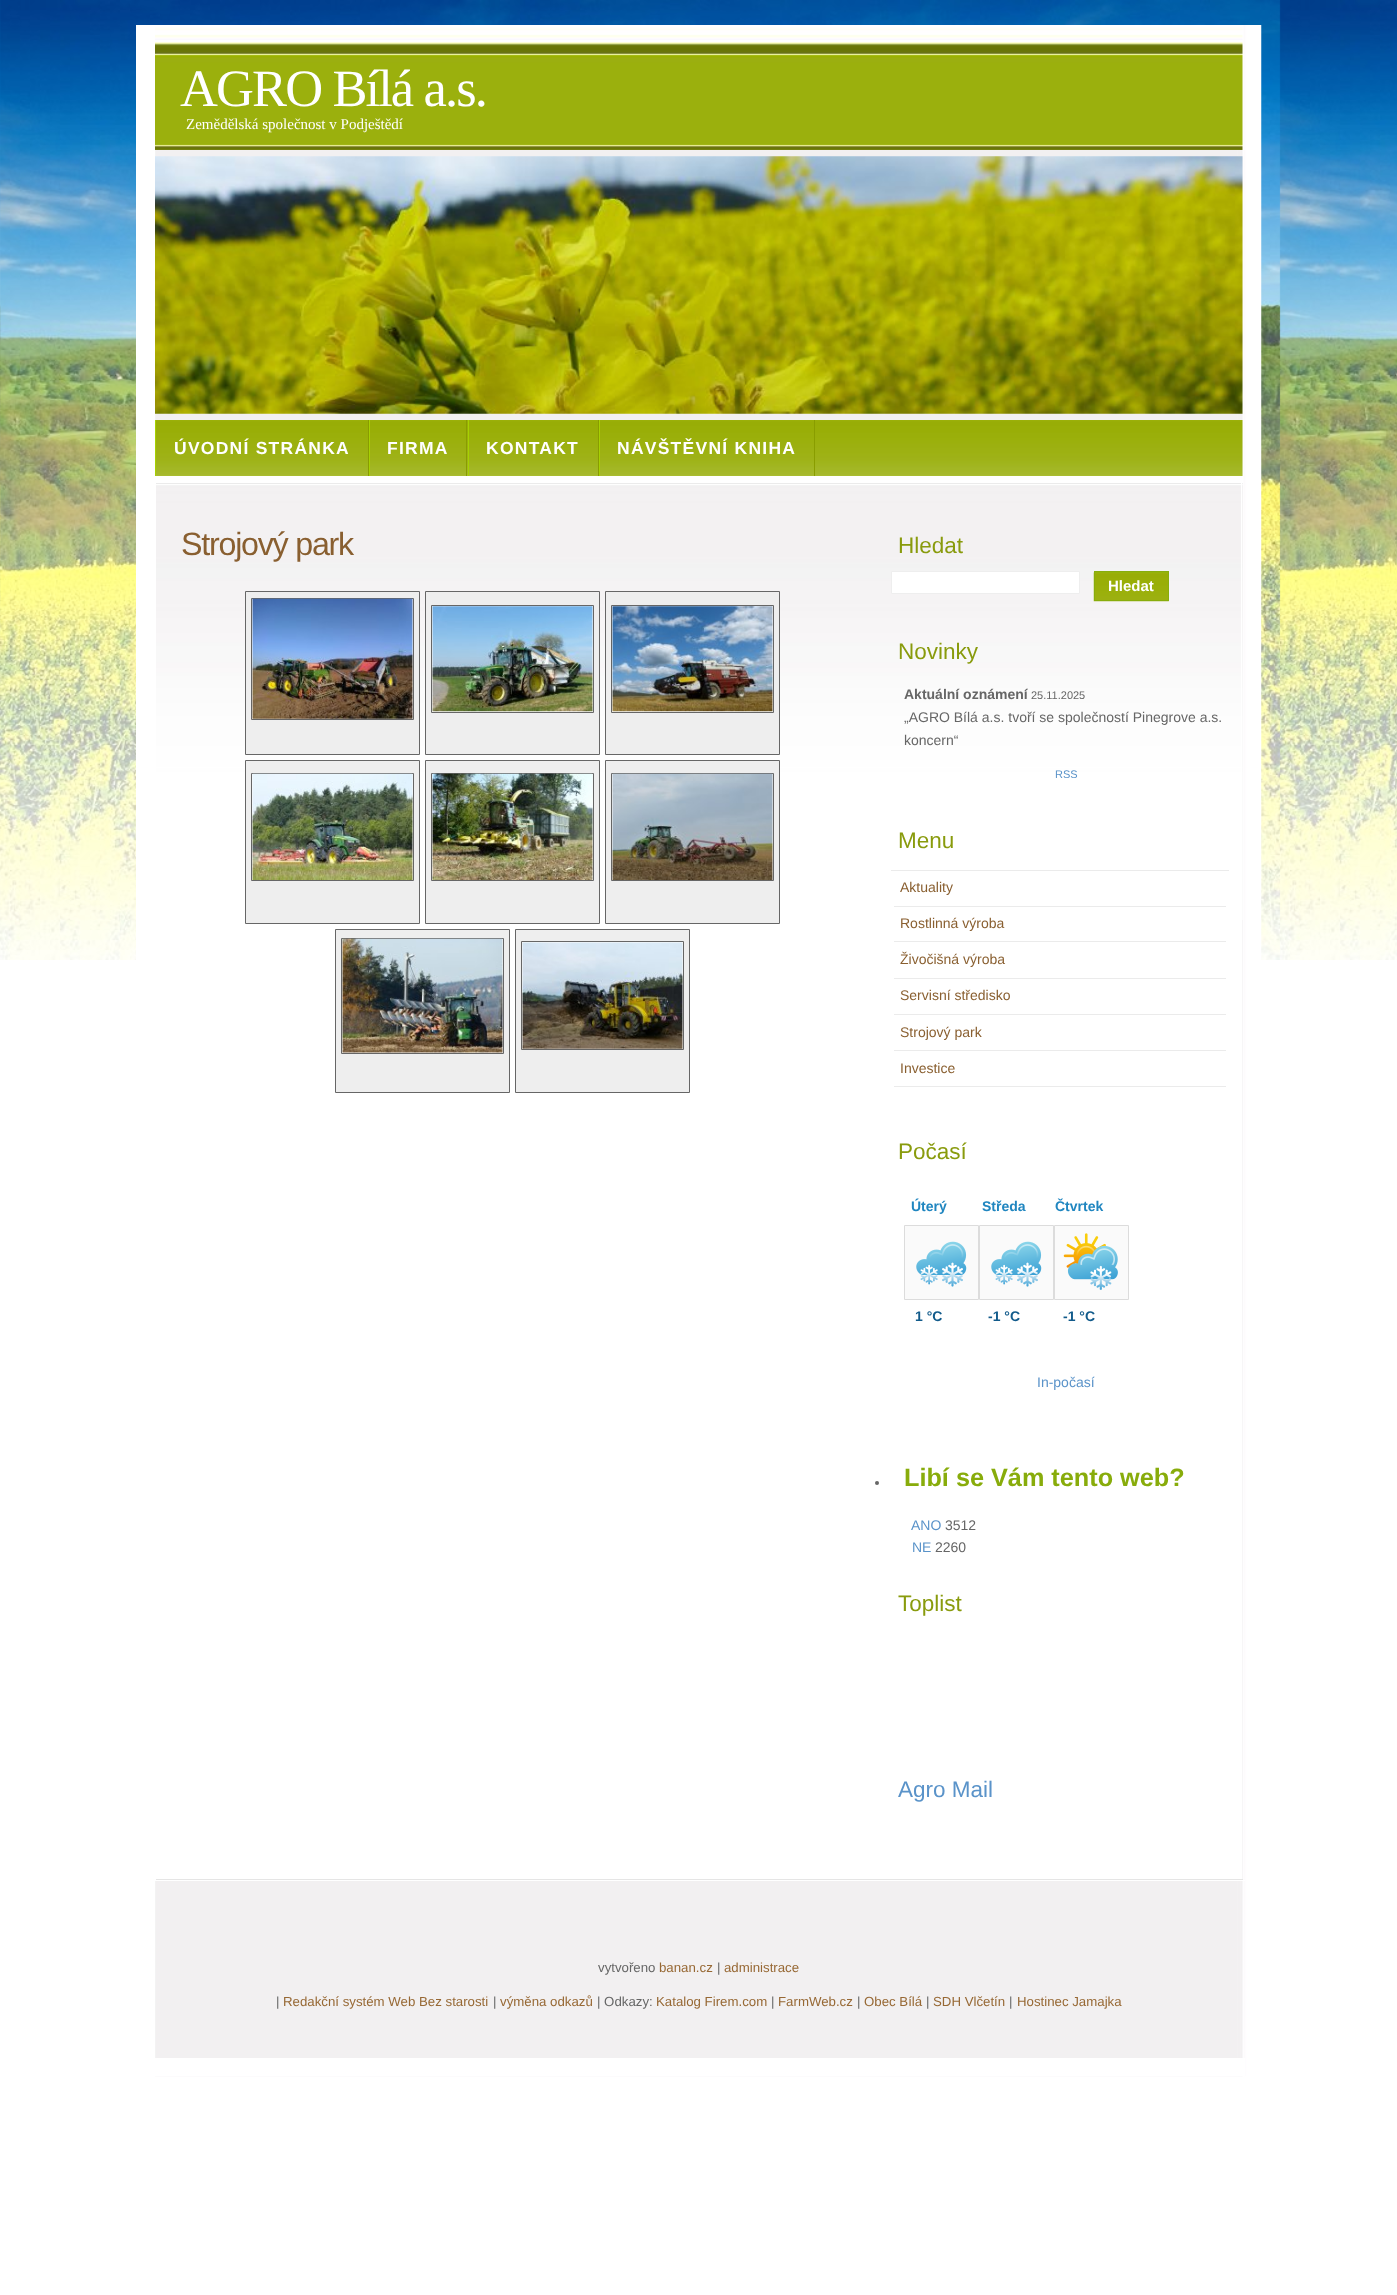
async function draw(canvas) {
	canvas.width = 1397;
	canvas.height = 2295;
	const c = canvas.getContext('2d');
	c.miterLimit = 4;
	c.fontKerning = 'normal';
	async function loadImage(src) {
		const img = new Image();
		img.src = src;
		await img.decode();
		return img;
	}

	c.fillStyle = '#fff';
	c.fillRect(0, 0, 1397, 2295);
	c.drawImage(await loadImage('img1.png'), 0, 0, 1397, 960);
	c.fillRect(136, 25, 19, 935);
	c.drawImage(await loadImage('img2.png'), 155, 25, 1107, 2052);
	c.fillRect(155, 25, 1088, 125);
	c.drawImage(await loadImage('img3.png'), 155, 27, 1088, 123);
	c.letterSpacing = '-1.9px';
	c.font = '52.5px Liberation Serif';
	c.fillText('AGRO Bílá a.s.', 180, 106);
	c.letterSpacing = '0px';
	c.font = '15px Liberation Serif';
	c.fillText('Zemědělská společnost v Podještědí', 186, 129);
	c.drawImage(await loadImage('img4.png'), 155, 156, 1088, 258);
	c.drawImage(await loadImage('img5.png'), 156, 420, 1087, 56);
	c.fillStyle = '#899d00';
	c.fillRect(368, 420, 1, 56);
	c.fillStyle = '#a7d101';
	c.fillRect(155, 420, 1, 56);
	c.letterSpacing = '1.25px';
	c.font = 'bold 17.5px Liberation Sans';
	c.fillStyle = '#fff';
	c.fillText('ÚVODNÍ STRÁNKA', 174, 454);
	c.fillStyle = '#899d00';
	c.fillRect(466, 420, 1, 56);
	c.fillStyle = '#a7d101';
	c.fillRect(369, 420, 1, 56);
	c.fillStyle = '#fff';
	c.fillText('FIRMA', 387, 454);
	c.fillStyle = '#899d00';
	c.fillRect(598, 420, 1, 56);
	c.fillStyle = '#a7d101';
	c.fillRect(468, 420, 1, 56);
	c.fillStyle = '#fff';
	c.fillText('KONTAKT', 486, 454);
	c.fillStyle = '#899d00';
	c.fillRect(814, 420, 1, 56);
	c.fillStyle = '#a7d101';
	c.fillRect(599, 420, 1, 56);
	c.fillStyle = '#fff';
	c.fillText('NÁVŠTĚVNÍ KNIHA', 617, 454);
	c.fillRect(156, 920, 1085, 959);
	c.drawImage(await loadImage('img6.png'), 156, 483, 1087, 437);
	for (const [x, y, w, h, color] of [
		[155, 476, 1088, 7, '#fff'],
		[1241, 476, 1, 1404, '#fff'],
		[155, 1879, 1088, 1, '#e5e5e5'],
		[155, 476, 1, 1404, '#fff'],
	]) {
		c.fillStyle = color;
		c.fillRect(x, y, w, h);
	}
	c.letterSpacing = '-1.25px';
	c.font = '32.25px Liberation Sans';
	c.fillStyle = '#895f30';
	c.fillText('Strojový park', 181, 555);
	c.fillStyle = '#eee';
	c.beginPath();
	c.rect(245.5, 591.5, 174, 163);
	c.fill();
	c.strokeStyle = '#666';
	c.stroke();
	c.fillStyle = '#fafafa';
	c.beginPath();
	c.rect(251.5, 598.5, 162, 121);
	c.fill();
	c.stroke();
	c.drawImage(await loadImage('img7.png'), 252, 598, 161, 121);
	c.fillStyle = '#eee';
	c.beginPath();
	c.rect(425.5, 591.5, 174, 163);
	c.fill();
	c.stroke();
	c.fillStyle = '#fafafa';
	c.beginPath();
	c.rect(431.5, 605.5, 162, 107);
	c.fill();
	c.stroke();
	c.drawImage(await loadImage('img8.png'), 432, 606, 161, 106);
	c.fillStyle = '#eee';
	c.beginPath();
	c.rect(605.5, 591.5, 174, 163);
	c.fill();
	c.stroke();
	c.fillStyle = '#fafafa';
	c.beginPath();
	c.rect(611.5, 605.5, 162, 107);
	c.fill();
	c.stroke();
	c.drawImage(await loadImage('img9.png'), 612, 606, 161, 106);
	c.fillStyle = '#eee';
	c.beginPath();
	c.rect(245.5, 760.5, 174, 163);
	c.fill();
	c.stroke();
	c.fillStyle = '#fafafa';
	c.beginPath();
	c.rect(251.5, 773.5, 162, 107);
	c.fill();
	c.stroke();
	c.drawImage(await loadImage('img10.png'), 252, 773, 161, 107);
	c.fillStyle = '#eee';
	c.beginPath();
	c.rect(425.5, 760.5, 174, 163);
	c.fill();
	c.stroke();
	c.fillStyle = '#fafafa';
	c.beginPath();
	c.rect(431.5, 773.5, 162, 107);
	c.fill();
	c.stroke();
	c.drawImage(await loadImage('img11.png'), 432, 773, 161, 107);
	c.fillStyle = '#eee';
	c.beginPath();
	c.rect(605.5, 760.5, 174, 163);
	c.fill();
	c.stroke();
	c.fillStyle = '#fafafa';
	c.beginPath();
	c.rect(611.5, 773.5, 162, 107);
	c.fill();
	c.stroke();
	c.drawImage(await loadImage('img12.png'), 612, 773, 161, 107);
	c.fillStyle = '#eee';
	c.beginPath();
	c.rect(335.5, 929.5, 174, 163);
	c.fill();
	c.stroke();
	c.fillStyle = '#fafafa';
	c.beginPath();
	c.rect(341.5, 938.5, 162, 115);
	c.fill();
	c.stroke();
	c.drawImage(await loadImage('img13.png'), 342, 938, 161, 115);
	c.fillStyle = '#eee';
	c.beginPath();
	c.rect(515.5, 929.5, 174, 163);
	c.fill();
	c.stroke();
	c.fillStyle = '#fafafa';
	c.beginPath();
	c.rect(521.5, 941.5, 162, 108);
	c.fill();
	c.stroke();
	c.drawImage(await loadImage('img14.png'), 522, 942, 161, 107);
	c.letterSpacing = '0px';
	c.font = '22.5px Liberation Sans';
	c.fillStyle = '#899b0d';
	c.fillText('Hledat', 898, 553);
	c.fillStyle = '#fff';
	c.beginPath();
	c.rect(891.5, 571.5, 188, 22);
	c.fill();
	c.strokeStyle = '#eee';
	c.stroke();
	c.fillStyle = '#8eb50c';
	c.fillRect(1095, 572, 73, 1);
	c.drawImage(await loadImage('img15.png'), 1093, 572, 76, 30);
	c.strokeStyle = '#88ad0c';
	c.strokeRect(1094.5, 571.5, 74, 29);
	c.font = 'bold 15px Liberation Sans';
	c.fillStyle = '#fff';
	c.fillText('Hledat', 1108, 591);
	c.font = '22.5px Liberation Sans';
	c.fillStyle = '#899b0d';
	c.fillText('Novinky', 898, 659);
	c.font = 'bold 14px Liberation Sans';
	c.fillStyle = '#666';
	c.fillText('Aktuální oznámení', 904, 699);
	c.font = '11px Liberation Sans';
	c.fillText('25.11.2025', 1031, 699);
	c.font = '14px Liberation Sans';
	c.fillText('„AGRO Bílá a.s. tvoří se společností Pinegrove a.s.', 904, 722);
	c.fillText('koncern“', 904, 745);
	c.font = '11px Liberation Sans';
	c.fillStyle = '#5a93c9';
	c.fillText('RSS', 1055, 778);
	c.font = '22.5px Liberation Sans';
	c.fillStyle = '#899b0d';
	c.fillText('Menu', 898, 848);
	c.fillStyle = '#ebebeb';
	c.fillRect(891, 870, 338, 1);
	c.fillRect(894, 906, 332, 1);
	c.font = '14px Liberation Sans';
	c.fillStyle = '#895f30';
	c.fillText('Aktuality', 900, 892);
	c.fillStyle = '#ebebeb';
	c.fillRect(894, 941, 332, 1);
	c.fillStyle = '#895f30';
	c.fillText('Rostlinná výroba', 900, 928);
	c.fillStyle = '#ebebeb';
	c.fillRect(894, 978, 332, 1);
	c.fillStyle = '#895f30';
	c.fillText('Živočišná výroba', 900, 964);
	c.fillStyle = '#ebebeb';
	c.fillRect(894, 1014, 332, 1);
	c.fillStyle = '#895f30';
	c.fillText('Servisní středisko', 900, 1000);
	c.fillStyle = '#ebebeb';
	c.fillRect(894, 1050, 332, 1);
	c.fillStyle = '#895f30';
	c.fillText('Strojový park', 900, 1037);
	c.fillStyle = '#ebebeb';
	c.fillRect(894, 1086, 332, 1);
	c.fillStyle = '#895f30';
	c.fillText('Investice', 900, 1073);
	c.font = '22.5px Liberation Sans';
	c.fillStyle = '#899b0d';
	c.fillText('Počasí', 898, 1159);
	c.font = 'bold 14px Liberation Sans';
	c.fillStyle = '#2086c0';
	c.fillText('Úterý', 911, 1211);
	c.fillStyle = '#fafafa';
	c.beginPath();
	c.rect(904.5, 1225.5, 74, 74);
	c.fill();
	c.strokeStyle = '#dcdcdc';
	c.stroke();
	c.drawImage(await loadImage('img16.png'), 916, 1241, 51, 46);
	c.fillStyle = '#125b8b';
	c.fillText('1 °C', 915, 1321);
	c.fillStyle = '#2086c0';
	c.fillText('Středa', 982, 1211);
	c.fillStyle = '#fafafa';
	c.beginPath();
	c.rect(979.5, 1225.5, 74, 74);
	c.fill();
	c.stroke();
	c.drawImage(await loadImage('img16.png'), 991, 1241, 51, 46);
	c.fillStyle = '#125b8b';
	c.fillText('-1 °C', 988, 1321);
	c.fillStyle = '#2086c0';
	c.fillText('Čtvrtek', 1055, 1211);
	c.fillStyle = '#fafafa';
	c.beginPath();
	c.rect(1054.5, 1225.5, 74, 74);
	c.fill();
	c.stroke();
	c.drawImage(await loadImage('img17.png'), 1063, 1233, 55, 57);
	c.fillStyle = '#125b8b';
	c.fillText('-1 °C', 1063, 1321);
	c.font = '14px Liberation Sans';
	c.fillStyle = '#5a93c9';
	c.fillText('In-počasí', 1037, 1387);
	c.fillStyle = '#666';
	c.beginPath();
	c.arc(877, 1483, 2, 0, 2 * Math.PI);
	c.fill();
	c.font = 'bold 25.25px Liberation Sans';
	c.fillStyle = '#88ac0b';
	c.fillText('Libí se Vám tento web?', 904, 1486);
	c.font = '14px Liberation Sans';
	c.fillStyle = '#5a93c9';
	c.fillText('ANO', 911, 1530);
	c.fillStyle = '#666';
	c.fillText('3512', 945, 1530);
	c.fillStyle = '#5a93c9';
	c.fillText('NE', 912, 1552);
	c.fillStyle = '#666';
	c.fillText('2260', 935, 1552);
	c.font = '22.5px Liberation Sans';
	c.fillStyle = '#899b0d';
	c.fillText('Toplist', 898, 1611);
	c.fillStyle = '#5a93c9';
	c.fillText('Agro Mail', 898, 1797);
	c.fillStyle = '#fff';
	c.fillRect(155, 1880, 1090, 1);
	c.fillRect(155, 2058, 1090, 18);
	c.font = '13.25px Liberation Sans';
	c.fillStyle = '#666';
	c.fillText('vytvořeno', 598, 1972);
	c.fillStyle = '#976834';
	c.fillText('banan.cz', 659, 1972);
	c.fillStyle = '#666';
	c.fillText('|', 717, 1972);
	c.fillStyle = '#976834';
	c.fillText('administrace', 724, 1972);
	c.fillStyle = '#666';
	c.fillText('|', 276, 2006);
	c.fillStyle = '#976834';
	c.fillText('Redakční systém Web Bez starosti', 283, 2006);
	c.fillStyle = '#666';
	c.fillText('|', 493, 2006);
	c.fillStyle = '#976834';
	c.fillText('výměna odkazů', 500, 2006);
	c.fillStyle = '#666';
	c.fillText('| Odkazy:', 597, 2006);
	c.fillStyle = '#976834';
	c.fillText('Katalog Firem.com', 656, 2006);
	c.fillStyle = '#666';
	c.fillText('|', 771, 2006);
	c.fillStyle = '#976834';
	c.fillText('FarmWeb.cz', 778, 2006);
	c.fillStyle = '#666';
	c.fillText('|', 857, 2006);
	c.fillStyle = '#976834';
	c.fillText('Obec Bílá', 864, 2006);
	c.fillStyle = '#666';
	c.fillText('|', 926, 2006);
	c.fillStyle = '#976834';
	c.fillText('SDH Vlčetín', 933, 2006);
	c.fillStyle = '#666';
	c.fillText('|', 1009, 2006);
	c.fillStyle = '#976834';
	c.fillText('Hostinec Jamajka', 1017, 2006);
}

draw(document.querySelector('canvas'));
